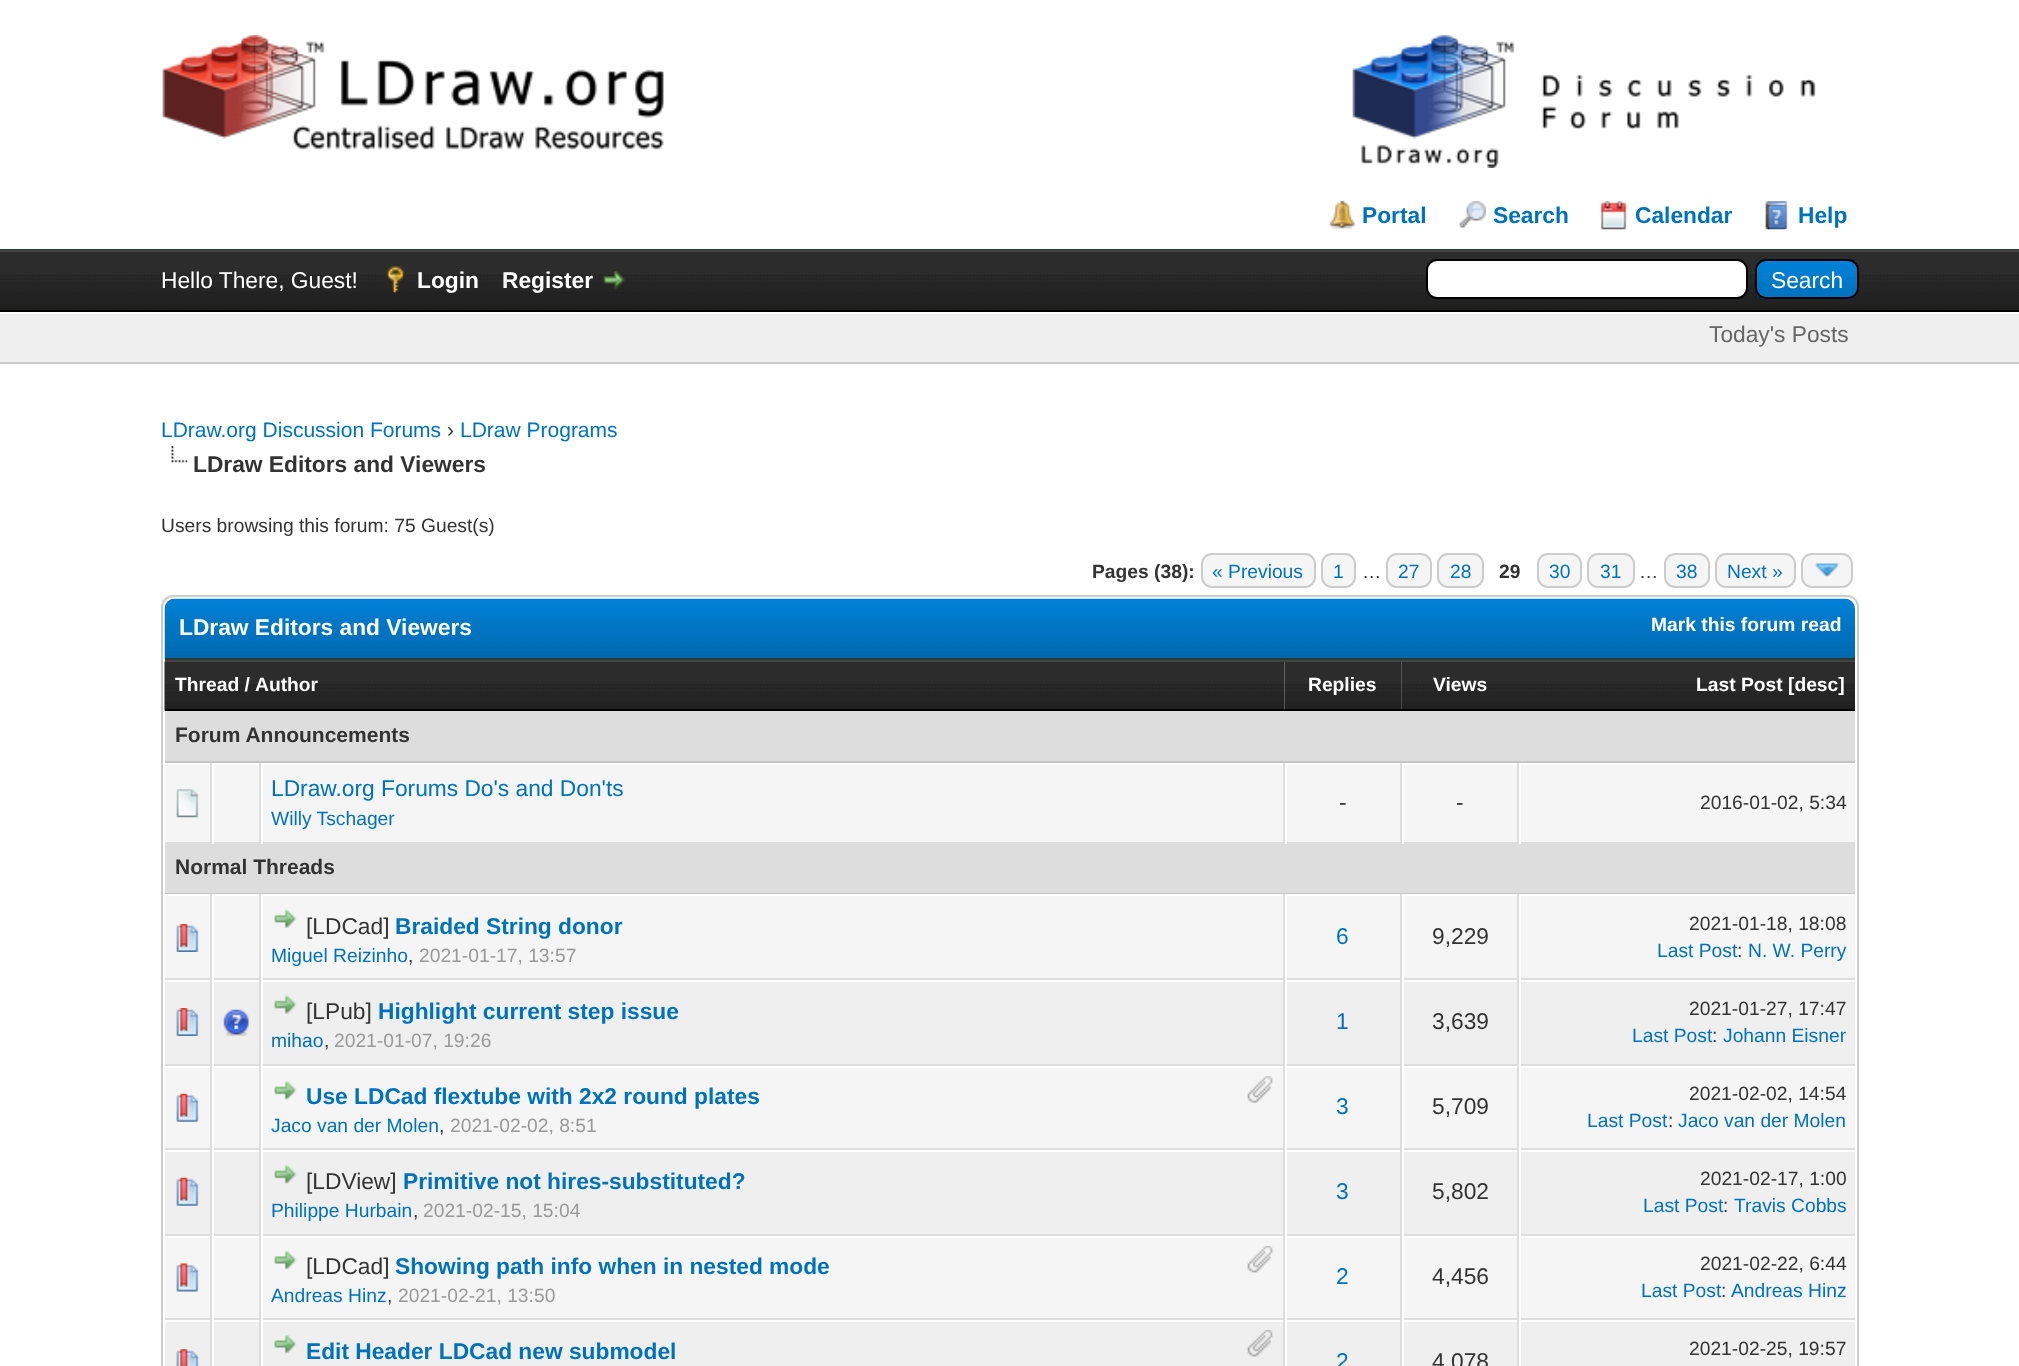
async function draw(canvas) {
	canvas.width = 2019;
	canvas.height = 1366;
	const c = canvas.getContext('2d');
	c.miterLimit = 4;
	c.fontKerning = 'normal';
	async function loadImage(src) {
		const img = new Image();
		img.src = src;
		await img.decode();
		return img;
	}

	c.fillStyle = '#fff';
	c.fillRect(0, 0, 2019, 1366);
	c.fillStyle = '#263c30';
	c.fillRect(0, 249, 2019, 1);
	c.drawImage(await loadImage('img1.png'), 162, 35, 502, 115);
	c.drawImage(await loadImage('img2.png'), 1352, 35, 464, 133);
	c.drawImage(await loadImage('img3.png'), 1329, 201, 26, 29);
	c.font = 'bold 22.75px Liberation Sans';
	c.fillStyle = '#0072bc';
	c.fillText('Portal', 1362, 223);
	c.drawImage(await loadImage('img4.png'), 1459, 201, 27, 27);
	c.fillText('Search', 1493, 223);
	c.drawImage(await loadImage('img5.png'), 1600, 201, 27, 29);
	c.fillText('Calendar', 1635, 223);
	c.drawImage(await loadImage('img6.png'), 1765, 201, 23, 29);
	c.fillText('Help', 1798, 223);
	c.drawImage(await loadImage('img7.png'), 0, 252, 2019, 58);
	c.fillStyle = '#444';
	c.fillRect(0, 250, 2019, 2);
	c.fillStyle = '#000';
	c.fillRect(0, 310, 2019, 2);
	c.font = '22.75px Liberation Sans';
	c.fillStyle = '#fff';
	c.fillText('Hello There, Guest!', 161, 288);
	c.drawImage(await loadImage('img8.png'), 386, 266, 19, 27);
	c.font = 'bold 22.75px Liberation Sans';
	c.fillText('Login', 417, 288);
	c.fillText('Register', 502, 288);
	c.drawImage(await loadImage('img9.png'), 603, 271, 22, 19);
	c.beginPath();
	c.roundRect(1427, 260, 320, 38, 10);
	c.fill();
	c.strokeStyle = '#000';
	c.lineWidth = 2;
	c.stroke();
	c.drawImage(await loadImage('img10.png'), 1755, 260, 104, 40);
	c.beginPath();
	c.roundRect(1756, 260, 102, 38, 10);
	c.stroke();
	c.font = '22.75px Liberation Sans';
	c.fillText('Search', 1771, 288);
	c.fillStyle = '#efefef';
	c.fillRect(0, 314, 2019, 48);
	c.fillStyle = '#ccc';
	c.fillRect(0, 362, 2019, 2);
	c.fillStyle = '#666';
	c.fillText('Today\'s Posts', 1709, 342);
	c.font = '21px Liberation Sans';
	c.fillStyle = '#0072bc';
	c.fillText('LDraw.org Discussion Forums', 161, 437);
	c.fillStyle = '#333';
	c.fillText('›', 447, 437);
	c.fillStyle = '#0072bc';
	c.fillText('LDraw Programs', 460, 437);
	c.drawImage(await loadImage('img11.png'), 171, 446, 17, 17);
	c.font = 'bold 22.75px Liberation Sans';
	c.fillStyle = '#333';
	c.fillText('LDraw Editors and Viewers', 193, 472);
	c.font = '19.25px Liberation Sans';
	c.fillText('Users browsing this forum: 75 Guest(s)', 161, 532);
	c.fillStyle = '#f5f5f5';
	c.beginPath();
	c.roundRect(1802, 554, 50, 33, 10);
	c.fill();
	c.strokeStyle = '#ccc';
	c.stroke();
	c.font = 'bold 19.25px Liberation Sans';
	c.fillStyle = '#333';
	c.fillText('Pages (38):', 1092, 578);
	c.fillStyle = '#f5f5f5';
	c.beginPath();
	c.roundRect(1202, 554, 113, 33, 10);
	c.fill();
	c.stroke();
	c.font = '19.25px Liberation Sans';
	c.fillStyle = '#0072bc';
	c.fillText('« Previous', 1212, 578);
	c.fillStyle = '#f5f5f5';
	c.beginPath();
	c.roundRect(1322, 554, 33, 33, 10);
	c.fill();
	c.stroke();
	c.fillStyle = '#0072bc';
	c.fillText('1', 1333, 578);
	c.fillStyle = '#333';
	c.fillText('…', 1362, 578);
	c.fillStyle = '#f5f5f5';
	c.beginPath();
	c.roundRect(1387, 554, 44, 33, 10);
	c.fill();
	c.stroke();
	c.fillStyle = '#0072bc';
	c.fillText('27', 1398, 578);
	c.fillStyle = '#f5f5f5';
	c.beginPath();
	c.roundRect(1438, 554, 45, 33, 10);
	c.fill();
	c.stroke();
	c.fillStyle = '#0072bc';
	c.fillText('28', 1450, 578);
	c.font = 'bold 19.25px Liberation Sans';
	c.fillStyle = '#333';
	c.fillText('29', 1499, 578);
	c.fillStyle = '#f5f5f5';
	c.beginPath();
	c.roundRect(1538, 554, 43, 33, 10);
	c.fill();
	c.stroke();
	c.font = '19.25px Liberation Sans';
	c.fillStyle = '#0072bc';
	c.fillText('30', 1549, 578);
	c.fillStyle = '#f5f5f5';
	c.beginPath();
	c.roundRect(1588, 554, 46, 33, 10);
	c.fill();
	c.stroke();
	c.fillStyle = '#0072bc';
	c.fillText('31', 1600, 578);
	c.fillStyle = '#333';
	c.fillText('…', 1639, 578);
	c.fillStyle = '#f5f5f5';
	c.beginPath();
	c.roundRect(1665, 554, 44, 33, 10);
	c.fill();
	c.stroke();
	c.fillStyle = '#0072bc';
	c.fillText('38', 1676, 578);
	c.fillStyle = '#f5f5f5';
	c.beginPath();
	c.roundRect(1716, 554, 79, 33, 10);
	c.fill();
	c.stroke();
	c.fillStyle = '#0072bc';
	c.fillText('Next »', 1727, 578);
	c.drawImage(await loadImage('img12.png'), 1814, 563, 26, 14);
	c.beginPath();
	c.roundRect(162, 596, 1696, 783, 11);
	c.stroke();
	c.drawImage(await loadImage('img13.png'), 164, 598, 1691, 62);
	c.fillStyle = '#263c30';
	c.fillRect(165, 658, 1690, 2);
	c.font = 'bold 22.75px Liberation Sans';
	c.fillStyle = '#fff';
	c.fillText('LDraw Editors and Viewers', 179, 635);
	c.font = 'bold 19.25px Liberation Sans';
	c.fillText('Mark this forum read', 1651, 631);
	c.drawImage(await loadImage('img14.png'), 164, 661, 1121, 50);
	c.fillStyle = '#444';
	c.fillRect(165, 660, 1120, 2);
	c.fillStyle = '#000';
	c.fillRect(165, 709, 1120, 2);
	c.fillStyle = '#fff';
	c.fillText('Thread /', 175, 691);
	c.fillText('Author', 255, 691);
	c.drawImage(await loadImage('img15.png'), 1284, 661, 118, 50);
	c.fillStyle = '#444';
	c.fillRect(1285, 660, 117, 2);
	c.fillStyle = '#000';
	c.fillRect(1285, 709, 117, 2);
	c.fillStyle = '#fff';
	c.fillText('Replies', 1308, 691);
	c.drawImage(await loadImage('img16.png'), 1401, 661, 118, 50);
	c.fillStyle = '#444';
	c.fillRect(1402, 660, 453, 2);
	c.fillStyle = '#000';
	c.fillRect(1402, 709, 453, 2);
	c.fillStyle = '#fff';
	c.fillText('Views', 1433, 691);
	c.drawImage(await loadImage('img17.png'), 1519, 662, 336, 47);
	c.fillText('Last Post [desc]', 1696, 691);
	c.fillStyle = '#ddd';
	c.fillRect(165, 711, 1690, 50);
	c.fillStyle = '#c5c5c5';
	c.fillRect(165, 761, 1690, 2);
	c.font = 'bold 21px Liberation Sans';
	c.fillStyle = '#333';
	c.fillText('Forum Announcements', 175, 742);
	for (const [x, y, w, h, color] of [
		[165, 765, 45, 77, '#f5f5f5'],
		[210, 763, 2, 81, '#ddd'],
		[165, 842, 47, 2, '#ddd'],
	]) {
		c.fillStyle = color;
		c.fillRect(x, y, w, h);
	}
	c.drawImage(await loadImage('img18.png'), 176, 789, 23, 29);
	for (const [x, y, w, h, color] of [
		[214, 765, 45, 77, '#f5f5f5'],
		[259, 763, 2, 81, '#ddd'],
		[212, 842, 49, 2, '#ddd'],
		[212, 842, 2, 2, '#fff'],
		[263, 765, 1020, 77, '#f5f5f5'],
		[1283, 763, 2, 81, '#ddd'],
		[261, 842, 1024, 2, '#ddd'],
		[261, 842, 2, 2, '#fff'],
	]) {
		c.fillStyle = color;
		c.fillRect(x, y, w, h);
	}
	c.font = '22.75px Liberation Sans';
	c.fillStyle = '#0072bc';
	c.fillText('LDraw.org Forums Do\'s and Don\'ts', 271, 796);
	c.font = '19.25px Liberation Sans';
	c.fillText('Willy Tschager', 271, 825);
	for (const [x, y, w, h, color] of [
		[1287, 765, 113, 77, '#f5f5f5'],
		[1400, 763, 2, 81, '#ddd'],
		[1285, 842, 117, 2, '#ddd'],
		[1285, 842, 2, 2, '#fff'],
	]) {
		c.fillStyle = color;
		c.fillRect(x, y, w, h);
	}
	c.font = '22.75px Liberation Sans';
	c.fillStyle = '#333';
	c.fillText('-', 1339, 810);
	for (const [x, y, w, h, color] of [
		[1404, 765, 113, 77, '#f5f5f5'],
		[1517, 763, 2, 81, '#ddd'],
		[1402, 842, 453, 2, '#ddd'],
		[1402, 842, 2, 2, '#fff'],
	]) {
		c.fillStyle = color;
		c.fillRect(x, y, w, h);
	}
	c.fillStyle = '#333';
	c.fillText('-', 1456, 810);
	c.fillStyle = '#f5f5f5';
	c.fillRect(1521, 765, 334, 77);
	c.fillStyle = '#fff';
	c.fillRect(1519, 842, 2, 2);
	c.font = '19.25px Liberation Sans';
	c.fillStyle = '#333';
	c.fillText('2016-01-02, 5:34', 1700, 809);
	c.fillStyle = '#ddd';
	c.fillRect(165, 844, 1690, 49);
	c.fillStyle = '#c5c5c5';
	c.fillRect(165, 893, 1690, 1);
	c.font = 'bold 21px Liberation Sans';
	c.fillStyle = '#333';
	c.fillText('Normal Threads', 175, 874);
	for (const [x, y, w, h, color] of [
		[165, 896, 45, 82, '#f5f5f5'],
		[210, 894, 2, 472, '#ddd'],
		[165, 978, 47, 2, '#ddd'],
	]) {
		c.fillStyle = color;
		c.fillRect(x, y, w, h);
	}
	c.drawImage(await loadImage('img19.png'), 176, 924, 23, 28);
	for (const [x, y, w, h, color] of [
		[214, 896, 45, 82, '#f5f5f5'],
		[259, 894, 2, 472, '#ddd'],
		[212, 978, 49, 2, '#ddd'],
		[212, 978, 2, 2, '#fff'],
		[263, 896, 1020, 82, '#f5f5f5'],
		[1283, 894, 2, 472, '#ddd'],
		[261, 978, 1024, 2, '#ddd'],
		[261, 978, 2, 2, '#fff'],
	]) {
		c.fillStyle = color;
		c.fillRect(x, y, w, h);
	}
	c.drawImage(await loadImage('img20.png'), 274, 909, 23, 19);
	c.font = '22.75px Liberation Sans';
	c.fillStyle = '#333';
	c.fillText('[LDCad]', 306, 934);
	c.font = 'bold 22.75px Liberation Sans';
	c.fillStyle = '#0072bc';
	c.fillText('Braided String donor', 395, 934);
	c.font = '19.25px Liberation Sans';
	c.fillText('Miguel Reizinho', 271, 962);
	c.fillStyle = '#333';
	c.fillText(',', 408, 962);
	c.fillStyle = '#999';
	c.fillText('2021-01-17, 13:57', 419, 962);
	for (const [x, y, w, h, color] of [
		[1287, 896, 113, 82, '#f5f5f5'],
		[1400, 894, 2, 472, '#ddd'],
		[1285, 978, 117, 2, '#ddd'],
		[1285, 978, 2, 2, '#fff'],
	]) {
		c.fillStyle = color;
		c.fillRect(x, y, w, h);
	}
	c.font = '22.75px Liberation Sans';
	c.fillStyle = '#0072bc';
	c.fillText('6', 1336, 944);
	for (const [x, y, w, h, color] of [
		[1404, 896, 113, 82, '#f5f5f5'],
		[1517, 894, 2, 472, '#ddd'],
		[1402, 978, 453, 2, '#ddd'],
		[1402, 978, 2, 2, '#fff'],
	]) {
		c.fillStyle = color;
		c.fillRect(x, y, w, h);
	}
	c.fillStyle = '#333';
	c.fillText('9,229', 1432, 944);
	c.fillStyle = '#f5f5f5';
	c.fillRect(1521, 896, 334, 82);
	c.fillStyle = '#fff';
	c.fillRect(1519, 978, 2, 2);
	c.font = '19.25px Liberation Sans';
	c.fillStyle = '#333';
	c.fillText('2021-01-18, 18:08', 1689, 930);
	c.fillStyle = '#0072bc';
	c.fillText('Last Post', 1657, 957);
	c.fillStyle = '#333';
	c.fillText(':', 1737, 957);
	c.fillStyle = '#0072bc';
	c.fillText('N. W. Perry', 1748, 957);
	c.fillStyle = '#efefef';
	c.fillRect(165, 982, 45, 82);
	c.fillStyle = '#ddd';
	c.fillRect(165, 1064, 1690, 2);
	c.drawImage(await loadImage('img21.png'), 176, 1008, 23, 28);
	c.fillStyle = '#efefef';
	c.fillRect(214, 982, 45, 82);
	c.fillStyle = '#fff';
	c.fillRect(212, 1064, 2, 2);
	c.drawImage(await loadImage('img22.png'), 223, 1009, 26, 27);
	c.fillStyle = '#efefef';
	c.fillRect(263, 982, 1020, 82);
	c.fillStyle = '#fff';
	c.fillRect(261, 1064, 2, 2);
	c.drawImage(await loadImage('img23.png'), 274, 995, 23, 19);
	c.font = '22.75px Liberation Sans';
	c.fillStyle = '#333';
	c.fillText('[LPub]', 306, 1019);
	c.font = 'bold 22.75px Liberation Sans';
	c.fillStyle = '#0072bc';
	c.fillText('Highlight current step issue', 378, 1019);
	c.font = '19.25px Liberation Sans';
	c.fillText('mihao', 271, 1047);
	c.fillStyle = '#333';
	c.fillText(',', 324, 1047);
	c.fillStyle = '#999';
	c.fillText('2021-01-07, 19:26', 334, 1047);
	c.fillStyle = '#efefef';
	c.fillRect(1287, 982, 113, 82);
	c.fillStyle = '#fff';
	c.fillRect(1285, 1064, 2, 2);
	c.font = '22.75px Liberation Sans';
	c.fillStyle = '#0072bc';
	c.fillText('1', 1336, 1029);
	c.fillStyle = '#efefef';
	c.fillRect(1404, 982, 113, 82);
	c.fillStyle = '#fff';
	c.fillRect(1402, 1064, 2, 2);
	c.fillStyle = '#333';
	c.fillText('3,639', 1432, 1029);
	c.fillStyle = '#efefef';
	c.fillRect(1521, 982, 334, 82);
	c.fillStyle = '#fff';
	c.fillRect(1519, 1064, 2, 2);
	c.font = '19.25px Liberation Sans';
	c.fillStyle = '#333';
	c.fillText('2021-01-27, 17:47', 1689, 1015);
	c.fillStyle = '#0072bc';
	c.fillText('Last Post', 1632, 1042);
	c.fillStyle = '#333';
	c.fillText(':', 1712, 1042);
	c.fillStyle = '#0072bc';
	c.fillText('Johann Eisner', 1723, 1042);
	c.fillStyle = '#f5f5f5';
	c.fillRect(165, 1068, 45, 80);
	c.fillStyle = '#ddd';
	c.fillRect(165, 1148, 1690, 2);
	c.drawImage(await loadImage('img24.png'), 176, 1093, 23, 29);
	for (const [x, y, w, h, color] of [
		[214, 1068, 45, 80, '#f5f5f5'],
		[212, 1148, 2, 2, '#fff'],
		[263, 1068, 1020, 80, '#f5f5f5'],
		[261, 1148, 2, 2, '#fff'],
	]) {
		c.fillStyle = color;
		c.fillRect(x, y, w, h);
	}
	c.drawImage(await loadImage('img25.png'), 274, 1081, 23, 19);
	c.font = 'bold 22.75px Liberation Sans';
	c.fillStyle = '#0072bc';
	c.fillText('Use LDCad flextube with 2x2 round plates', 306, 1104);
	c.font = '19.25px Liberation Sans';
	c.fillText('Jaco van der Molen', 271, 1132);
	c.fillStyle = '#333';
	c.fillText(',', 439, 1132);
	c.fillStyle = '#999';
	c.fillText('2021-02-02, 8:51', 450, 1132);
	c.drawImage(await loadImage('img26.png'), 1247, 1076, 26, 27);
	c.fillStyle = '#f5f5f5';
	c.fillRect(1287, 1068, 113, 80);
	c.fillStyle = '#fff';
	c.fillRect(1285, 1148, 2, 2);
	c.font = '22.75px Liberation Sans';
	c.fillStyle = '#0072bc';
	c.fillText('3', 1336, 1114);
	c.fillStyle = '#f5f5f5';
	c.fillRect(1404, 1068, 113, 80);
	c.fillStyle = '#fff';
	c.fillRect(1402, 1148, 2, 2);
	c.fillStyle = '#333';
	c.fillText('5,709', 1432, 1114);
	c.fillStyle = '#f5f5f5';
	c.fillRect(1521, 1068, 334, 80);
	c.fillStyle = '#fff';
	c.fillRect(1519, 1148, 2, 2);
	c.font = '19.25px Liberation Sans';
	c.fillStyle = '#333';
	c.fillText('2021-02-02, 14:54', 1689, 1100);
	c.fillStyle = '#0072bc';
	c.fillText('Last Post', 1587, 1127);
	c.fillStyle = '#333';
	c.fillText(':', 1668, 1127);
	c.fillStyle = '#0072bc';
	c.fillText('Jaco van der Molen', 1678, 1127);
	c.fillStyle = '#efefef';
	c.fillRect(165, 1152, 45, 82);
	c.fillStyle = '#ddd';
	c.fillRect(165, 1234, 1690, 2);
	c.drawImage(await loadImage('img27.png'), 176, 1177, 23, 29);
	for (const [x, y, w, h, color] of [
		[214, 1152, 45, 82, '#efefef'],
		[212, 1234, 2, 2, '#fff'],
		[263, 1152, 1020, 82, '#efefef'],
		[261, 1234, 2, 2, '#fff'],
	]) {
		c.fillStyle = color;
		c.fillRect(x, y, w, h);
	}
	c.drawImage(await loadImage('img28.png'), 274, 1165, 23, 19);
	c.font = '22.75px Liberation Sans';
	c.fillStyle = '#333';
	c.fillText('[LDView]', 306, 1189);
	c.font = 'bold 22.75px Liberation Sans';
	c.fillStyle = '#0072bc';
	c.fillText('Primitive not hires-substituted?', 403, 1189);
	c.font = '19.25px Liberation Sans';
	c.fillText('Philippe Hurbain', 271, 1217);
	c.fillStyle = '#333';
	c.fillText(',', 413, 1217);
	c.fillStyle = '#999';
	c.fillText('2021-02-15, 15:04', 423, 1217);
	c.fillStyle = '#efefef';
	c.fillRect(1287, 1152, 113, 82);
	c.fillStyle = '#fff';
	c.fillRect(1285, 1234, 2, 2);
	c.font = '22.75px Liberation Sans';
	c.fillStyle = '#0072bc';
	c.fillText('3', 1336, 1199);
	c.fillStyle = '#efefef';
	c.fillRect(1404, 1152, 113, 82);
	c.fillStyle = '#fff';
	c.fillRect(1402, 1234, 2, 2);
	c.fillStyle = '#333';
	c.fillText('5,802', 1432, 1199);
	c.fillStyle = '#efefef';
	c.fillRect(1521, 1152, 334, 82);
	c.fillStyle = '#fff';
	c.fillRect(1519, 1234, 2, 2);
	c.font = '19.25px Liberation Sans';
	c.fillStyle = '#333';
	c.fillText('2021-02-17, 1:00', 1700, 1185);
	c.fillStyle = '#0072bc';
	c.fillText('Last Post', 1643, 1212);
	c.fillStyle = '#333';
	c.fillText(':', 1723, 1212);
	c.fillStyle = '#0072bc';
	c.fillText('Travis Cobbs', 1734, 1212);
	c.fillStyle = '#f5f5f5';
	c.fillRect(165, 1238, 45, 80);
	c.fillStyle = '#ddd';
	c.fillRect(165, 1318, 1690, 2);
	c.drawImage(await loadImage('img29.png'), 176, 1263, 23, 29);
	for (const [x, y, w, h, color] of [
		[214, 1238, 45, 80, '#f5f5f5'],
		[212, 1318, 2, 2, '#fff'],
		[263, 1238, 1020, 80, '#f5f5f5'],
		[261, 1318, 2, 2, '#fff'],
	]) {
		c.fillStyle = color;
		c.fillRect(x, y, w, h);
	}
	c.drawImage(await loadImage('img30.png'), 274, 1250, 23, 20);
	c.font = '22.75px Liberation Sans';
	c.fillStyle = '#333';
	c.fillText('[LDCad]', 306, 1274);
	c.font = 'bold 22.75px Liberation Sans';
	c.fillStyle = '#0072bc';
	c.fillText('Showing path info when in nested mode', 395, 1274);
	c.font = '19.25px Liberation Sans';
	c.fillText('Andreas Hinz', 271, 1302);
	c.fillStyle = '#333';
	c.fillText(',', 387, 1302);
	c.fillStyle = '#999';
	c.fillText('2021-02-21, 13:50', 398, 1302);
	c.drawImage(await loadImage('img31.png'), 1247, 1246, 26, 27);
	c.fillStyle = '#f5f5f5';
	c.fillRect(1287, 1238, 113, 80);
	c.fillStyle = '#fff';
	c.fillRect(1285, 1318, 2, 2);
	c.font = '22.75px Liberation Sans';
	c.fillStyle = '#0072bc';
	c.fillText('2', 1336, 1284);
	c.fillStyle = '#f5f5f5';
	c.fillRect(1404, 1238, 113, 80);
	c.fillStyle = '#fff';
	c.fillRect(1402, 1318, 2, 2);
	c.fillStyle = '#333';
	c.fillText('4,456', 1432, 1284);
	c.fillStyle = '#f5f5f5';
	c.fillRect(1521, 1238, 334, 80);
	c.fillStyle = '#fff';
	c.fillRect(1519, 1318, 2, 2);
	c.font = '19.25px Liberation Sans';
	c.fillStyle = '#333';
	c.fillText('2021-02-22, 6:44', 1700, 1270);
	c.fillStyle = '#0072bc';
	c.fillText('Last Post', 1641, 1297);
	c.fillStyle = '#333';
	c.fillText(':', 1721, 1297);
	c.fillStyle = '#0072bc';
	c.fillText('Andreas Hinz', 1731, 1297);
	c.fillStyle = '#efefef';
	c.fillRect(165, 1322, 45, 44);
	c.drawImage(await loadImage('img32.png'), 176, 1349, 23, 17);
	c.fillRect(214, 1322, 45, 44);
	c.fillRect(263, 1322, 1020, 44);
	c.drawImage(await loadImage('img33.png'), 274, 1334, 23, 20);
	c.font = 'bold 22.75px Liberation Sans';
	c.fillStyle = '#0072bc';
	c.fillText('Edit Header LDCad new submodel', 306, 1359);
	c.drawImage(await loadImage('img34.png'), 1247, 1330, 26, 27);
	c.fillStyle = '#efefef';
	c.fillRect(1287, 1322, 113, 44);
	c.font = '22.75px Liberation Sans';
	c.fillStyle = '#0072bc';
	c.fillText('2', 1336, 1369);
	c.fillStyle = '#efefef';
	c.fillRect(1404, 1322, 113, 44);
	c.fillStyle = '#333';
	c.fillText('4,078', 1432, 1369);
	c.fillStyle = '#efefef';
	c.fillRect(1521, 1322, 334, 44);
	c.font = '19.25px Liberation Sans';
	c.fillStyle = '#333';
	c.fillText('2021-02-25, 19:57', 1689, 1355);
}

draw(document.querySelector('canvas'));
